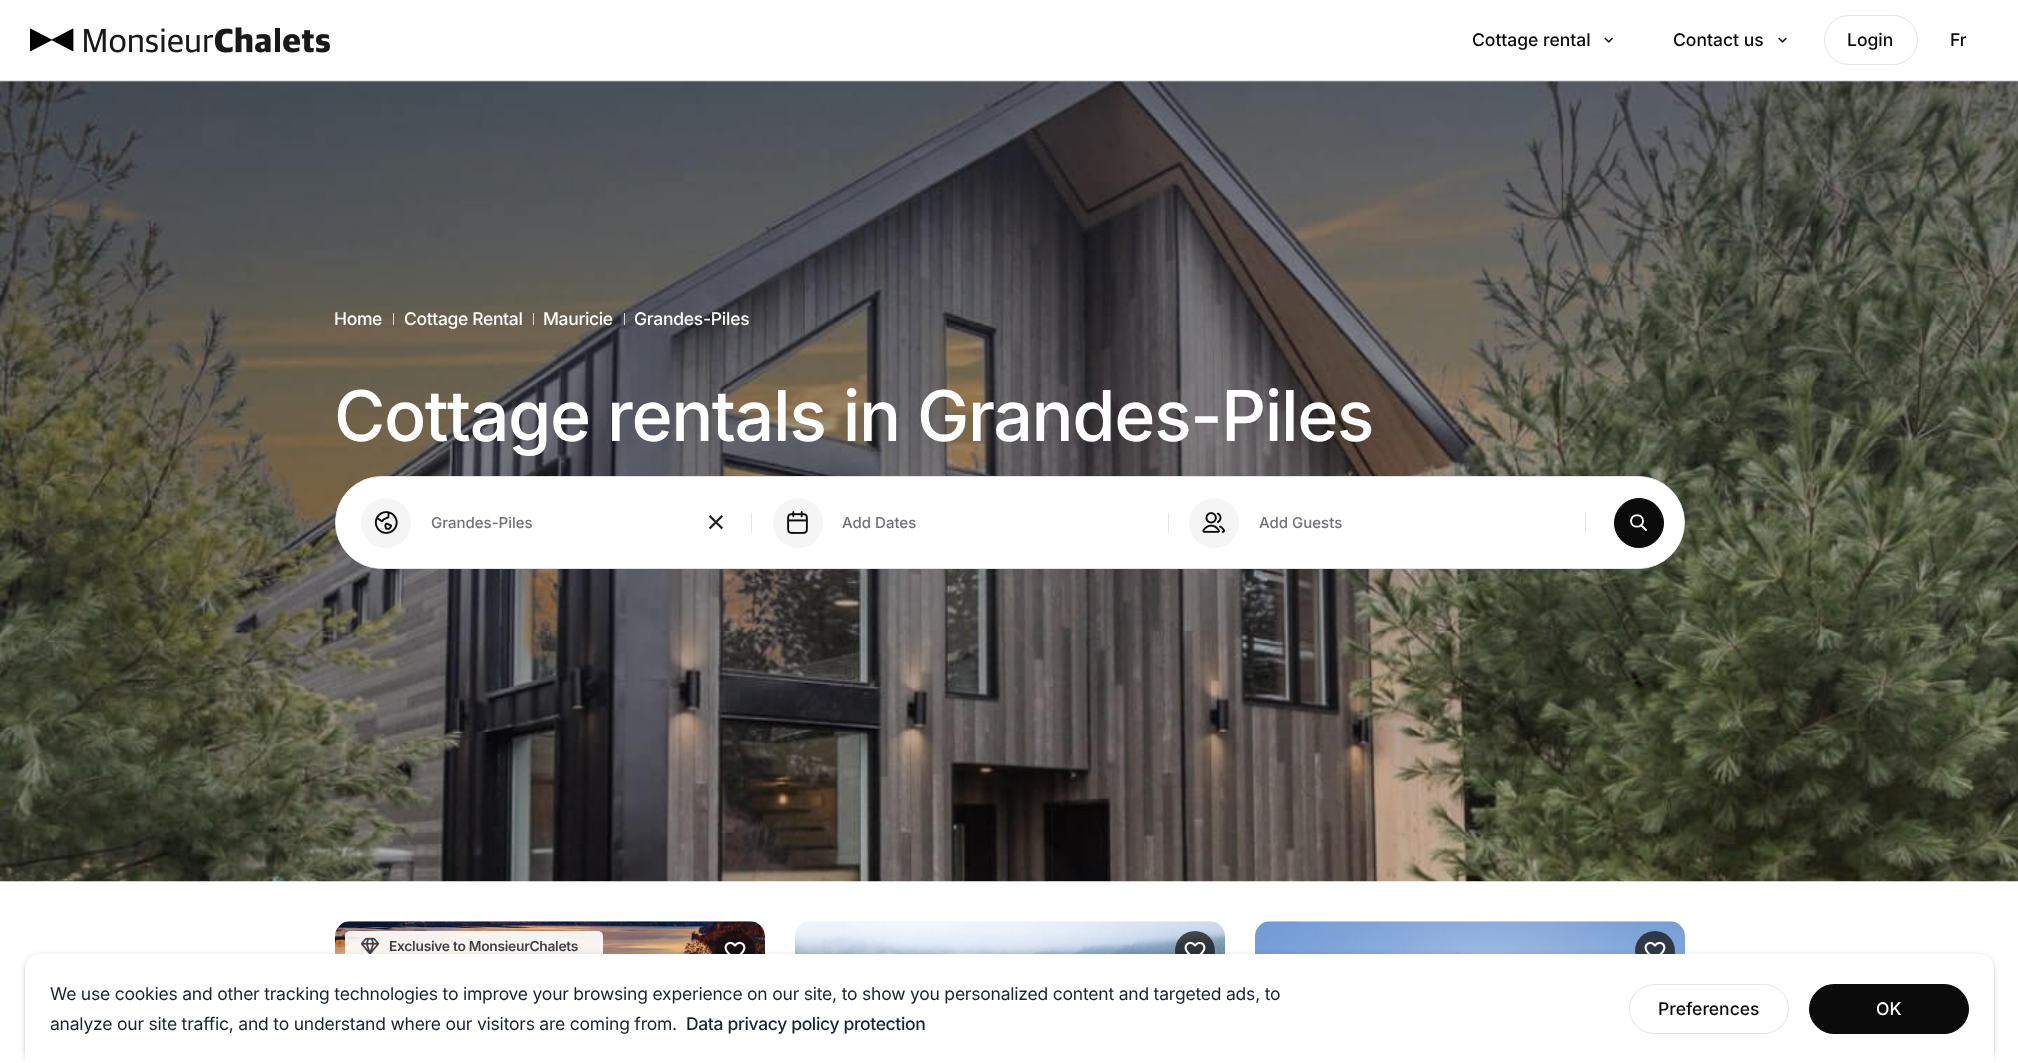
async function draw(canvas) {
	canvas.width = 2018;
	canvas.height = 1063;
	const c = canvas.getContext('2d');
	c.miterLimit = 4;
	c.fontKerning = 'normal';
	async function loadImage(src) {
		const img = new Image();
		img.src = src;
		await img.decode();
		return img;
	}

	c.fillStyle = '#fff';
	c.fillRect(0, 0, 2018, 1063);
	c.fillStyle = '#e4e4e7';
	c.fillRect(0, 80, 2018, 1);
	c.drawImage(await loadImage('img1.png'), 30, 27, 300, 26);
	c.font = '500 17.5px Inter';
	c.fillStyle = '#0b0b0b';
	c.fillText('Cottage rental', 1472, 46);
	c.drawImage(await loadImage('img2.png'), 1604, 37, 9, 6);
	c.fillText('Contact us', 1673, 46);
	c.drawImage(await loadImage('img3.png'), 1778, 37, 9, 6);
	c.beginPath();
	c.roundRect(1824.5, 15.5, 93, 49, 24.5);
	c.strokeStyle = '#e4e4e7';
	c.stroke();
	c.fillText('Login', 1847, 46);
	c.fillText('Fr', 1950, 46);
	c.drawImage(await loadImage('img4.png'), 0, 81, 2018, 801);
	c.letterSpacing = '-0.35px';
	c.fillStyle = '#fff';
	c.fillText('Home', 334, 325);
	c.fillStyle = '#d4d4d8';
	c.fillRect(393, 313, 1, 12);
	c.fillStyle = '#fff';
	c.fillText('Cottage Rental', 404, 325);
	c.fillStyle = '#d4d4d8';
	c.fillRect(533, 313, 1, 12);
	c.fillStyle = '#fff';
	c.fillText('Mauricie', 543, 325);
	c.fillStyle = '#d4d4d8';
	c.fillRect(624, 313, 1, 12);
	c.letterSpacing = '-0.25px';
	c.fillStyle = '#fff';
	c.fillText('Grandes-Piles', 634, 325);
	c.letterSpacing = '-1.4px';
	c.font = '500 70px Inter';
	c.fillText('Cottage rentals in Grandes-Piles', 334, 441);
	c.beginPath();
	c.roundRect(335.5, 476.5, 1349, 92, 46);
	c.fill();
	c.stroke();
	c.beginPath();
	c.roundRect(336, 478, 1348, 90, 45);
	c.fill();
	c.fillStyle = '#f5f5f5';
	c.beginPath();
	c.arc(386, 523, 25, 0, 2 * Math.PI);
	c.fill();
	c.drawImage(await loadImage('img5.png'), 374, 511, 24, 23);
	c.letterSpacing = '0px';
	c.font = '500 15px Inter';
	c.fillStyle = '#71717a';
	c.fillText('Grandes-Piles', 431, 528);
	c.drawImage(await loadImage('img6.png'), 709, 515, 14, 15);
	c.fillStyle = '#e4e4e7';
	c.fillRect(751, 513, 1, 20);
	c.fillStyle = '#f5f5f5';
	c.beginPath();
	c.arc(798, 523, 25, 0, 2 * Math.PI);
	c.fill();
	c.drawImage(await loadImage('img7.png'), 787, 511, 21, 23);
	c.fillStyle = '#71717a';
	c.fillText('Add Dates', 842, 528);
	c.fillStyle = '#e4e4e7';
	c.fillRect(1168, 513, 1, 20);
	c.fillStyle = '#f5f5f5';
	c.beginPath();
	c.arc(1214, 523, 25, 0, 2 * Math.PI);
	c.fill();
	c.drawImage(await loadImage('img8.png'), 1202, 512, 23, 21);
	c.fillStyle = '#71717a';
	c.fillText('Add Guests', 1259, 528);
	c.fillStyle = '#e4e4e7';
	c.fillRect(1585, 513, 1, 20);
	c.fillStyle = '#0b0b0b';
	c.beginPath();
	c.arc(1639, 523, 24.5, 0, 2 * Math.PI);
	c.fill();
	c.strokeStyle = '#0b0b0b';
	c.stroke();
	c.beginPath();
	c.moveTo(1646, 530);
	c.lineTo(1641, 525);
	c.moveTo(1643, 521);
	c.bezierCurveTo(1643, 528.5, 1631, 528.5, 1631, 521);
	c.bezierCurveTo(1631.5, 513, 1643, 513.5, 1643, 521);
	c.closePath();
	c.strokeStyle = '#fff';
	c.lineWidth = 1.9;
	c.lineCap = 'round';
	c.lineJoin = 'round';
	c.stroke();
	c.drawImage(await loadImage('img9.png'), 335, 921, 430, 33);
	c.fillStyle = '#ffffffe6';
	c.beginPath();
	c.roundRect(345, 931, 258, 30, 5);
	c.fill();
	c.drawImage(await loadImage('img10.png'), 361, 937, 18, 17);
	c.letterSpacing = '-0.25px';
	c.font = '600 13.75px Inter';
	c.fillStyle = '#3f3f46';
	c.fillText('Exclusive to MonsieurChalets', 389, 951);
	c.fillStyle = '#0f0e0eb8';
	c.beginPath();
	c.arc(735, 951, 20, 0, 2 * Math.PI);
	c.fill();
	c.drawImage(await loadImage('img11.png'), 724, 941, 22, 13);
	c.drawImage(await loadImage('img12.png'), 795, 921, 430, 33);
	c.beginPath();
	c.arc(1195, 951, 20, 0, 2 * Math.PI);
	c.fill();
	c.drawImage(await loadImage('img13.png'), 1184, 941, 22, 13);
	c.drawImage(await loadImage('img14.png'), 1255, 921, 430, 33);
	c.beginPath();
	c.arc(1655, 951, 20, 0, 2 * Math.PI);
	c.fill();
	c.drawImage(await loadImage('img15.png'), 1644, 941, 22, 13);
	c.fillStyle = '#0000001f';
	c.filter = 'blur(3px)';
	c.beginPath();
	c.roundRect(25, 955, 1969, 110, 15);
	c.fill();
	c.filter = 'none';
	c.fillStyle = '#00000024';
	c.filter = 'blur(1px)';
	c.beginPath();
	c.roundRect(25, 956, 1969, 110, 15);
	c.fill();
	c.filter = 'none';
	c.fillStyle = '#fff';
	c.beginPath();
	c.moveTo(40, 954);
	c.lineTo(1979, 954);
	c.bezierCurveTo(1987.5, 954, 1994, 960.5, 1994, 969);
	c.lineTo(1994, 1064);
	c.lineTo(25, 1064);
	c.lineTo(25, 969);
	c.bezierCurveTo(25, 960.5, 31.5, 954, 40, 954);
	c.closePath();
	c.fill();
	c.letterSpacing = '-0.21px';
	c.font = '17.5px Inter';
	c.fillStyle = '#1a2232';
	c.fillText('We use cookies and other tracking technologies to improve your browsing experience on our site, to show you personalized content and targeted ads, to', 50, 1000);
	c.fillText('analyze our site traffic, and to understand where our visitors are coming from.', 50, 1030);
	c.letterSpacing = '-0.35px';
	c.font = '500 17.5px Inter';
	c.fillText('Data privacy policy protection', 686, 1030);
	c.beginPath();
	c.roundRect(1629.5, 984.5, 159, 49, 24.5);
	c.strokeStyle = '#e4e4e7';
	c.lineWidth = 1;
	c.lineJoin = 'miter';
	c.stroke();
	c.letterSpacing = '0px';
	c.fillStyle = '#0b0b0b';
	c.fillText('Preferences', 1658, 1015);
	c.beginPath();
	c.roundRect(1809.5, 984.5, 159, 49, 24.5);
	c.fill();
	c.strokeStyle = '#0b0b0b';
	c.stroke();
	c.fillStyle = '#fff';
	c.fillText('OK', 1876, 1015);
}

draw(document.querySelector('canvas'));
